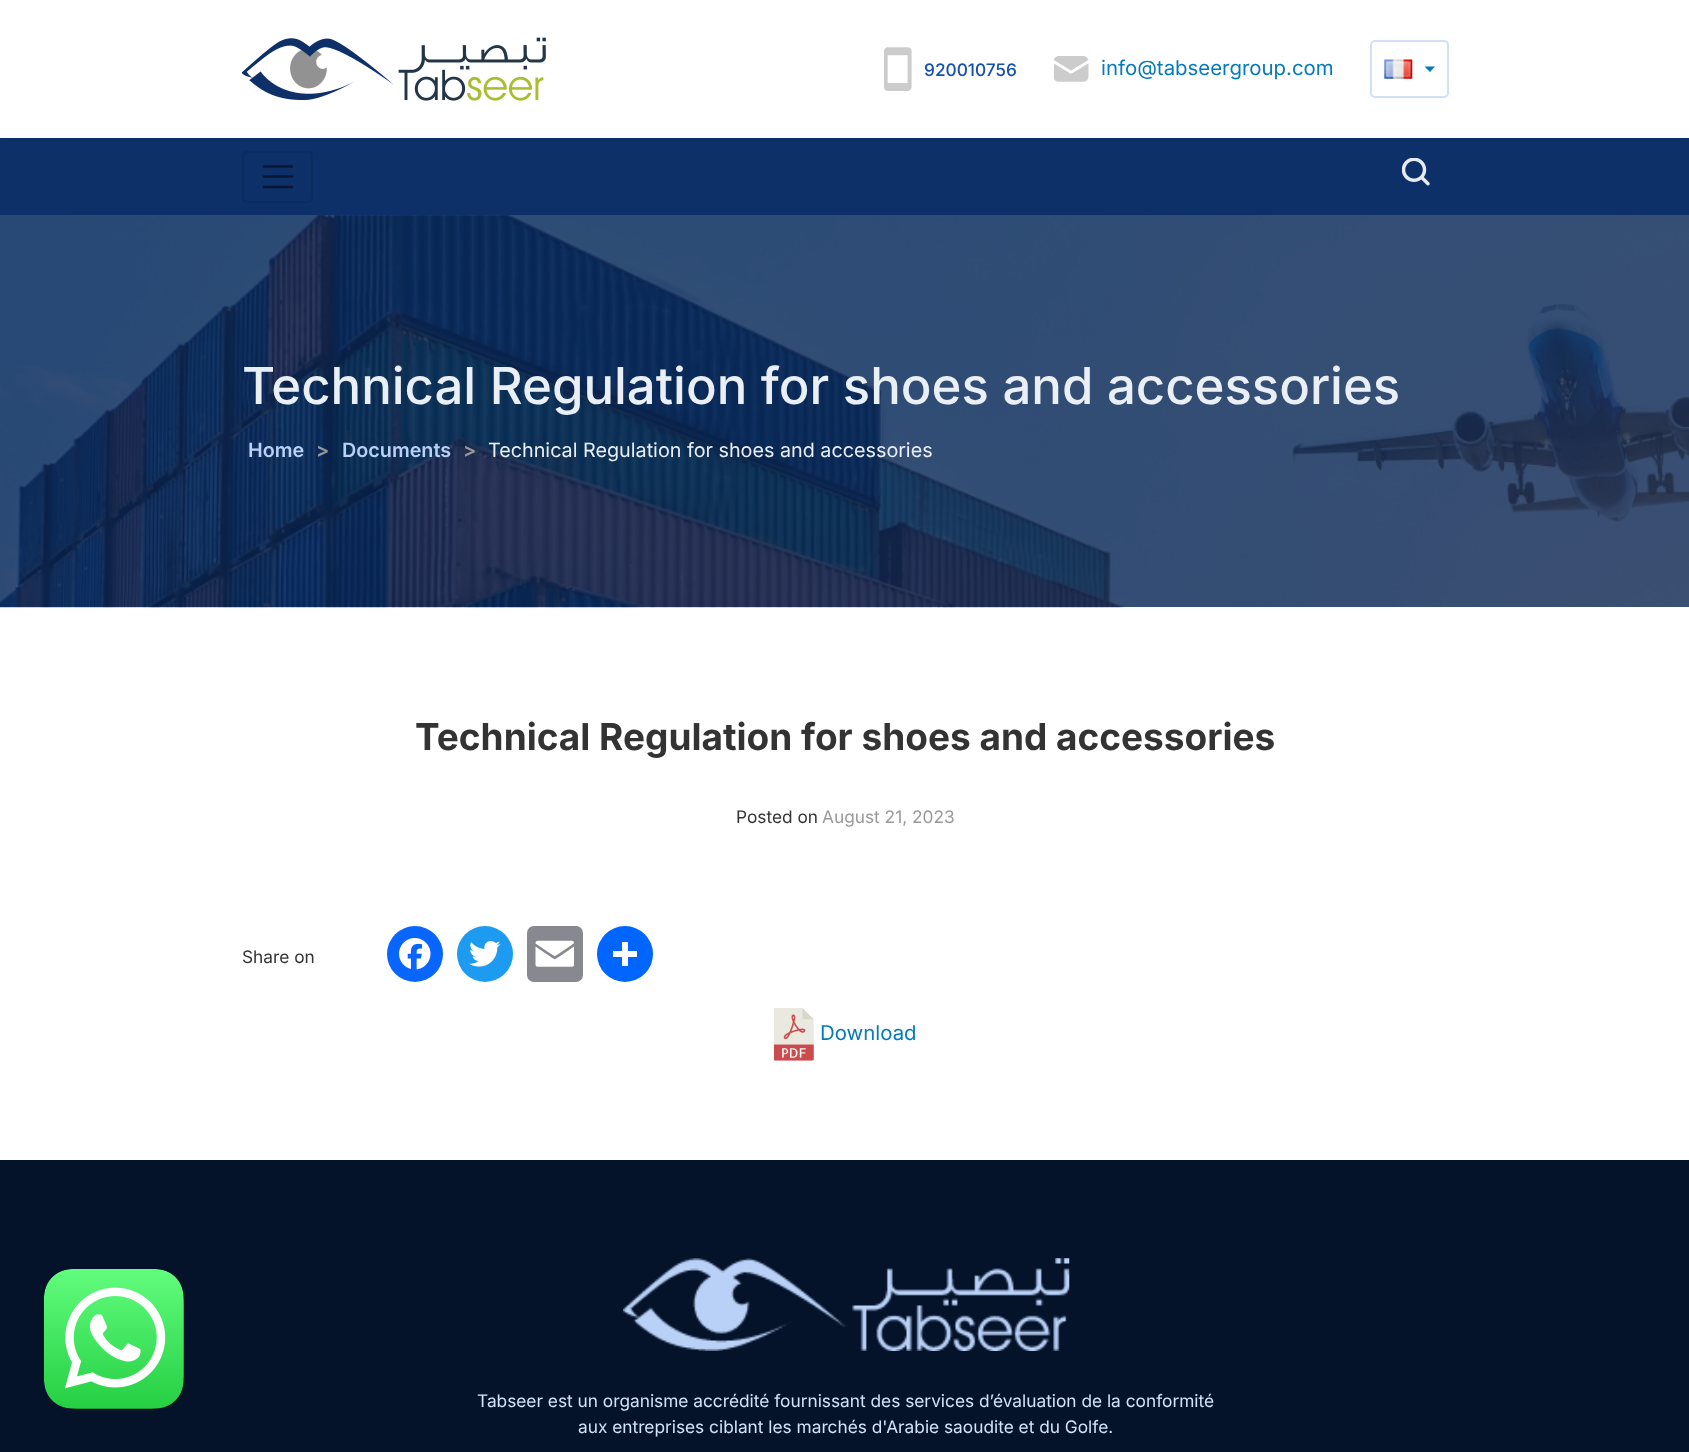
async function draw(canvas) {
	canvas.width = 1689;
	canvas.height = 1452;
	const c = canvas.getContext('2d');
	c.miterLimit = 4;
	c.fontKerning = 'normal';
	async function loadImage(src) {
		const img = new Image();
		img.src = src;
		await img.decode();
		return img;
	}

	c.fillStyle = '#fff';
	c.fillRect(0, 0, 1689, 1452);
	c.fillStyle = '#05132a';
	c.fillRect(0, 1160, 1689, 292);
	c.drawImage(await loadImage('img1.png'), 44, 1269, 140, 140);
	c.drawImage(await loadImage('img2.png'), 242, 37, 304, 64);
	c.drawImage(await loadImage('img3.png'), 884, 47, 28, 44);
	c.font = '500 17.3px Inter';
	c.fillStyle = '#1650ae';
	c.fillText('920010756', 924, 76);
	c.drawImage(await loadImage('img4.png'), 1054, 56, 35, 26);
	c.font = '20.4px Inter';
	c.fillStyle = '#047aba';
	c.fillText('info@tabseergroup.com', 1101, 75);
	c.beginPath();
	c.roundRect(1371, 41, 77, 56, 4);
	c.strokeStyle = '#d1e0f6';
	c.lineWidth = 2;
	c.stroke();
	c.drawImage(await loadImage('img5.png'), 1384, 59, 29, 20);
	c.beginPath();
	c.moveTo(1424.5, 66.5);
	c.lineTo(1435, 66.5);
	c.lineTo(1430, 72);
	c.closePath();
	c.fill();
	c.fillStyle = '#1650ae33';
	c.filter = 'blur(5px)';
	c.beginPath();
	c.rect(0, 144, 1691, 77);
	c.fill();
	c.filter = 'none';
	c.fillStyle = '#0d3068';
	c.fillRect(0, 138, 1689, 77);
	c.beginPath();
	c.roundRect(243, 152, 69, 50, 4);
	c.strokeStyle = '#0c2b5e';
	c.stroke();
	c.beginPath();
	c.moveTo(264, 166.5);
	c.lineTo(292, 166.5);
	c.moveTo(264, 176.5);
	c.lineTo(292, 176.5);
	c.moveTo(264, 187);
	c.lineTo(292, 187);
	c.strokeStyle = '#071834';
	c.lineWidth = 2.5;
	c.lineCap = 'round';
	c.stroke();
	c.drawImage(await loadImage('img6.png'), 1402, 158, 28, 28);
	c.drawImage(await loadImage('img7.png'), 0, 215, 1689, 393);
	c.fillStyle = '#0a2653cc';
	c.fillRect(0, 215, 1689, 392);
	c.font = '500 50.9px Inter';
	c.fillStyle = '#eaeff6';
	c.fillText('Technical Regulation for shoes and accessories', 242, 404);
	c.font = '600 19.75px Inter';
	c.fillStyle = '#b9d1f6';
	c.fillText('Home', 248, 457);
	c.fillStyle = '#999';
	c.fillText('>', 316, 457);
	c.fillStyle = '#b9d1f6';
	c.fillText('Documents', 342, 457);
	c.fillStyle = '#999';
	c.fillText('>', 463, 457);
	c.font = '19.75px Inter';
	c.fillStyle = '#eaeff6';
	c.fillText('Technical Regulation for shoes and accessories', 488, 457);
	c.font = 'bold 37px Inter';
	c.fillStyle = '#333';
	c.fillText('Technical Regulation for shoes and accessories', 415, 750);
	c.font = '17.3px Inter';
	c.fillText('Posted on', 736, 823);
	c.fillStyle = '#999';
	c.fillText('August 21, 2023', 822, 823);
	c.fillStyle = '#333';
	c.fillText('Share on', 242, 963);
	c.fillStyle = '#0866ff';
	c.beginPath();
	c.arc(415, 954, 28, 0, 2 * Math.PI);
	c.fill();
	c.drawImage(await loadImage('img8.png'), 399, 938, 32, 32);
	c.fillStyle = '#1d9bf0';
	c.beginPath();
	c.arc(485, 954, 28, 0, 2 * Math.PI);
	c.fill();
	c.drawImage(await loadImage('img9.png'), 469, 941, 32, 26);
	c.fillStyle = '#888990';
	c.beginPath();
	c.roundRect(527, 926, 56, 56, 7);
	c.fill();
	c.drawImage(await loadImage('img10.png'), 535, 940, 39, 27);
	c.fillStyle = '#0166ff';
	c.beginPath();
	c.arc(625, 954, 28, 0, 2 * Math.PI);
	c.fill();
	c.fillStyle = '#fff';
	c.fillRect(622, 942, 6, 24);
	c.fillRect(613, 951, 24, 6);
	c.drawImage(await loadImage('img11.png'), 774, 1008, 40, 53);
	c.font = '20.4px Inter';
	c.fillStyle = '#047aba';
	c.fillText('Download', 820, 1040);
	c.drawImage(await loadImage('img12.png'), 623, 1258, 447, 93);
	c.font = '17.3px Inter';
	c.fillStyle = '#d3e2fa';
	c.fillText('Tabseer est un organisme accrédité fournissant des services d’évaluation de la conformité', 477, 1407);
	c.fillText('aux entreprises ciblant les marchés d\'Arabie saoudite et du Golfe.', 578, 1433);
}

draw(document.querySelector('canvas'));
